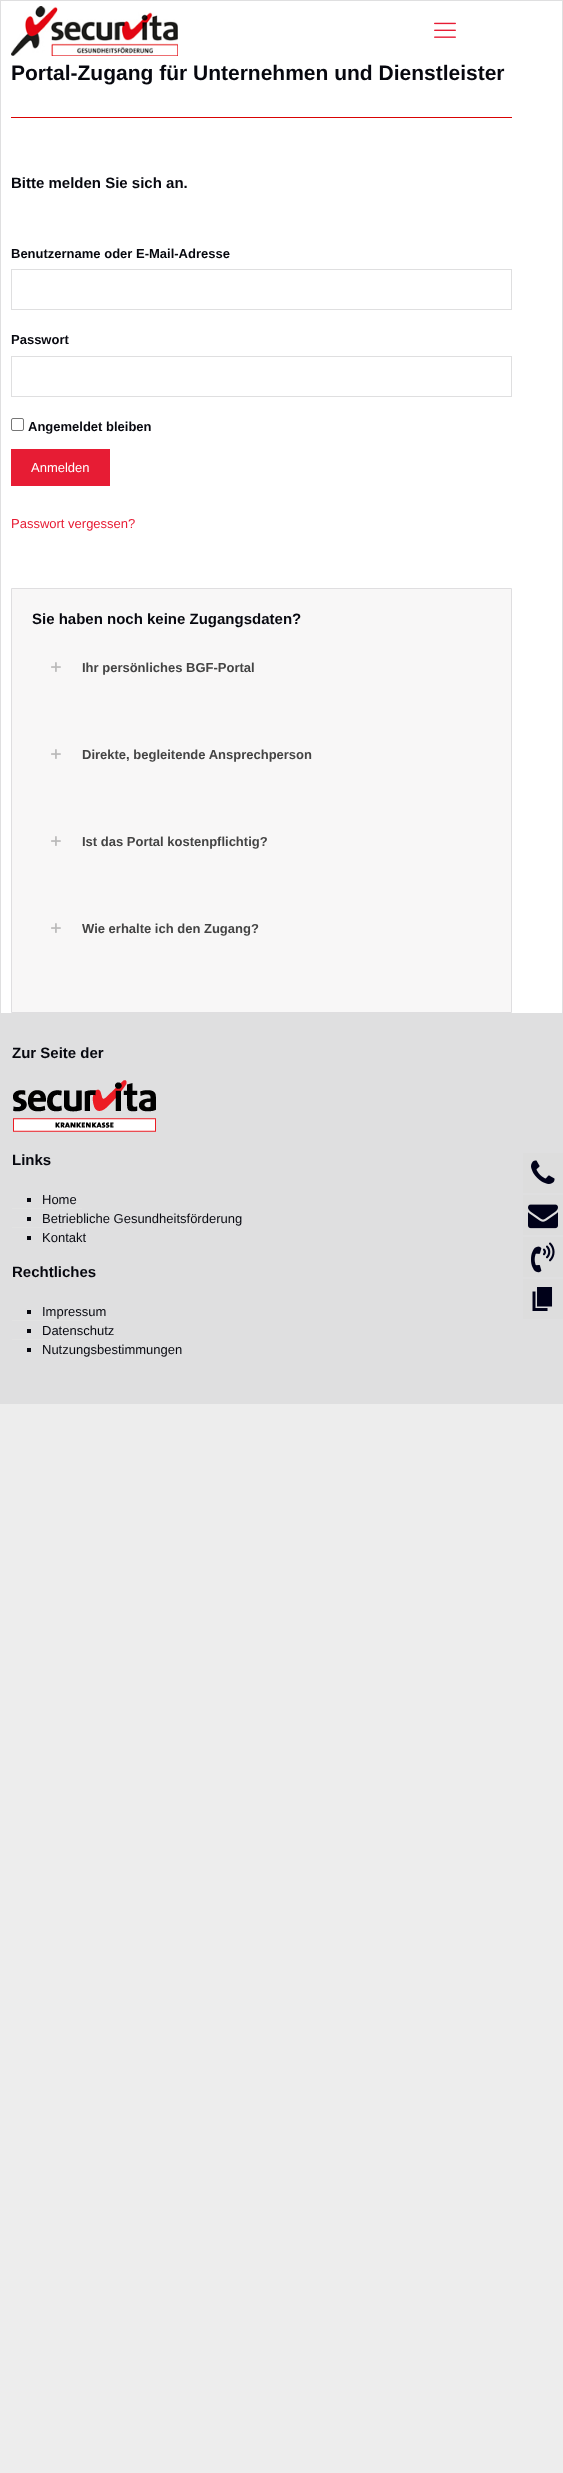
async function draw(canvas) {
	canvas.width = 563;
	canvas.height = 2473;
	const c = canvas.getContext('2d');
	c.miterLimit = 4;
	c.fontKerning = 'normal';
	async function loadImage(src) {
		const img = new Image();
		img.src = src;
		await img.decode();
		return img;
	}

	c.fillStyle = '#ededed';
	c.fillRect(0, 0, 563, 2473);
	for (const [x, y, w, h, color] of [
		[1, 1, 561, 1012, '#fff'],
		[0, 0, 563, 1, '#dfdfe0'],
		[562, 0, 1, 1013, '#dfdfe0'],
		[0, 0, 1, 1013, '#dfdfe0'],
	]) {
		c.fillStyle = color;
		c.fillRect(x, y, w, h);
	}
	c.drawImage(await loadImage('img1.png'), 11, 6, 167, 50);
	c.drawImage(await loadImage('img2.png'), 434, 22, 22, 16);
	c.fillStyle = '#d90303';
	c.fillRect(11, 117, 501, 1);
	c.font = 'bold 21px Liberation Sans';
	c.fillStyle = '#07080f';
	c.fillText('Portal-Zugang für Unternehmen und Dienstleister', 11, 80);
	c.font = 'bold 15px Liberation Sans';
	c.fillText('Bitte melden Sie sich an.', 11, 188);
	c.font = 'bold 13px Liberation Sans';
	c.fillText('Benutzername oder E-Mail-Adresse', 11, 258);
	c.strokeStyle = '#dfdfe0';
	c.strokeRect(11.5, 269.5, 500, 40);
	c.fillText('Passwort', 11, 344);
	c.strokeRect(11.5, 356.5, 500, 40);
	c.beginPath();
	c.roundRect(11.5, 418.5, 12, 12, 1.5);
	c.strokeStyle = '#767676';
	c.stroke();
	c.fillText('Angemeldet bleiben', 28, 431);
	c.fillStyle = '#e71c34';
	c.fillRect(11, 449, 99, 37);
	c.font = '13px Liberation Sans';
	c.fillStyle = '#fff';
	c.fillText('Anmelden', 31, 472);
	c.fillStyle = '#e71c34';
	c.fillText('Passwort vergessen?', 11, 528);
	c.fillStyle = '#f8f7f7';
	c.beginPath();
	c.rect(11.5, 588.5, 500, 424);
	c.fill();
	c.strokeStyle = '#dfdee0';
	c.stroke();
	c.font = 'bold 15px Liberation Sans';
	c.fillStyle = '#07080f';
	c.fillText('Sie haben noch keine Zugangsdaten?', 32, 624);
	c.drawImage(await loadImage('img3.png'), 51, 662, 10, 10);
	c.font = 'bold 13px Liberation Sans';
	c.fillStyle = '#444';
	c.fillText('Ihr persönliches BGF-Portal', 82, 672);
	c.drawImage(await loadImage('img3.png'), 51, 749, 10, 10);
	c.fillText('Direkte, begleitende Ansprechperson', 82, 759);
	c.drawImage(await loadImage('img3.png'), 51, 836, 10, 10);
	c.fillText('Ist das Portal kostenpflichtig?', 82, 846);
	c.drawImage(await loadImage('img3.png'), 51, 923, 10, 10);
	c.fillText('Wie erhalte ich den Zugang?', 82, 933);
	c.fillStyle = '#dfdfe0';
	c.fillRect(0, 1013, 563, 391);
	c.font = 'bold 15px Liberation Sans';
	c.fillStyle = '#07080f';
	c.fillText('Zur Seite der', 12, 1058);
	c.drawImage(await loadImage('img4.png'), 13, 1080, 143, 52);
	c.fillText('Links', 12, 1165);
	c.fillRect(27, 1198, 4, 4);
	c.font = '13px Liberation Sans';
	c.fillText('Home', 42, 1204);
	c.fillStyle = '#e2e2e2';
	c.fillRect(12, 1208, 70, 1);
	c.fillStyle = '#07080f';
	c.fillRect(27, 1217, 4, 4);
	c.fillText('Betriebliche Gesundheitsförderung', 42, 1223);
	c.fillStyle = '#e2e2e2';
	c.fillRect(12, 1227, 70, 1);
	c.fillStyle = '#07080f';
	c.fillRect(27, 1236, 4, 4);
	c.fillText('Kontakt', 42, 1242);
	c.font = 'bold 15px Liberation Sans';
	c.fillText('Rechtliches', 12, 1277);
	c.fillRect(27, 1310, 4, 4);
	c.font = '13px Liberation Sans';
	c.fillText('Impressum', 42, 1316);
	c.fillStyle = '#e2e2e2';
	c.fillRect(12, 1320, 70, 1);
	c.fillStyle = '#07080f';
	c.fillRect(27, 1329, 4, 4);
	c.fillText('Datenschutz', 42, 1335);
	c.fillStyle = '#e2e2e2';
	c.fillRect(12, 1339, 70, 1);
	c.fillStyle = '#07080f';
	c.fillRect(27, 1348, 4, 4);
	c.fillText('Nutzungsbestimmungen', 42, 1354);
	c.fillStyle = '#ddd';
	c.fillRect(523, 1153, 40, 40);
	c.drawImage(await loadImage('img5.png'), 531, 1160, 24, 24);
	c.fillRect(523, 1195, 40, 40);
	c.drawImage(await loadImage('img6.png'), 528, 1204, 30, 25);
	c.fillRect(523, 1237, 40, 40);
	c.drawImage(await loadImage('img7.png'), 531, 1242, 24, 31);
	c.fillRect(523, 1279, 40, 40);
	c.drawImage(await loadImage('img8.png'), 532, 1287, 21, 24);
}

draw(document.querySelector('canvas'));
